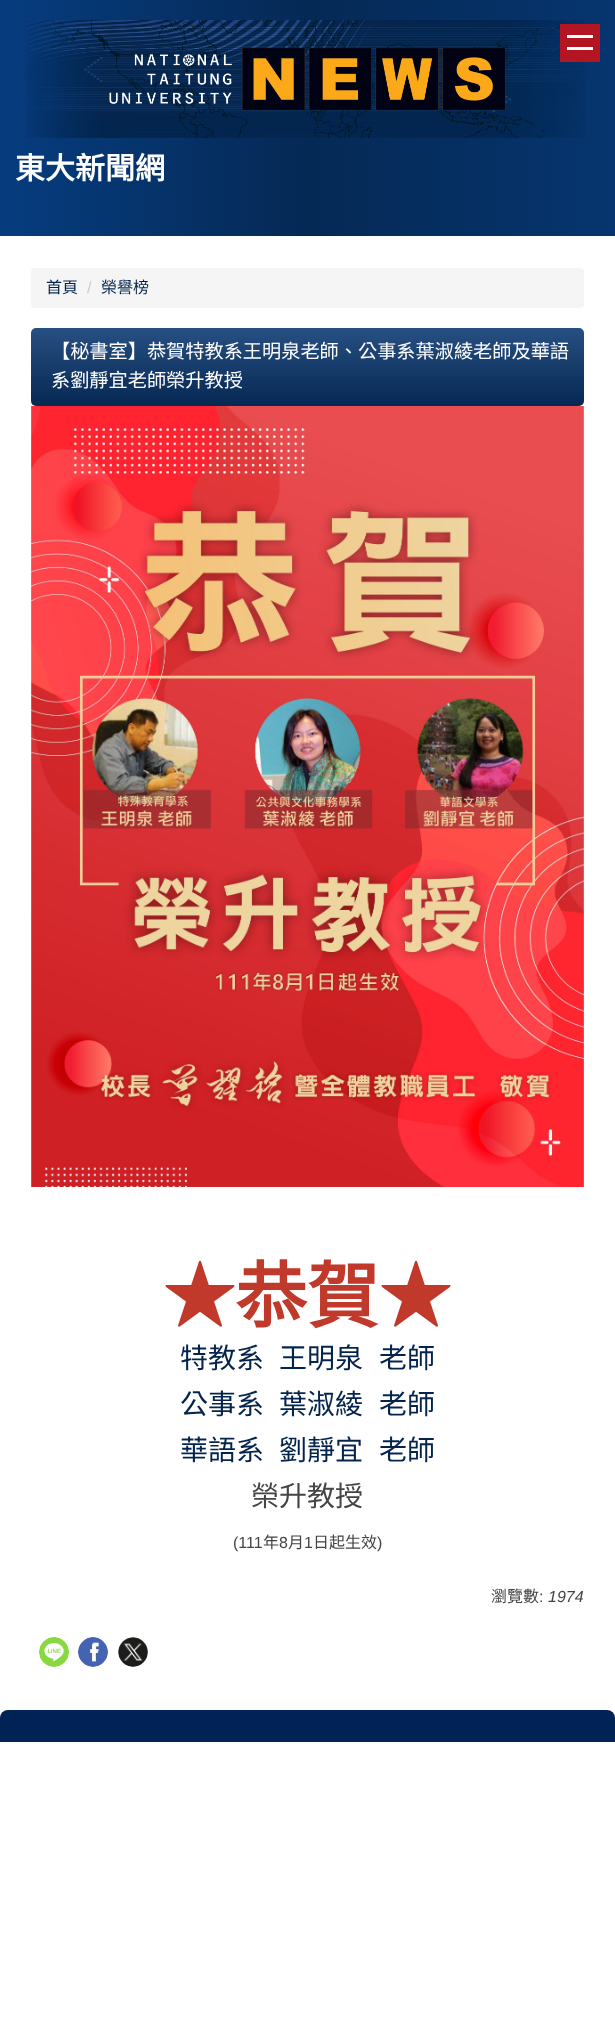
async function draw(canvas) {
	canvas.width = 615;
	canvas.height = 2038;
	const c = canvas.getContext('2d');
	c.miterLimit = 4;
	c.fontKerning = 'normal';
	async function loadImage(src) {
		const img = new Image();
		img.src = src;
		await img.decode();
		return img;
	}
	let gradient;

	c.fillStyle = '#fff';
	c.fillRect(0, 0, 615, 2038);
	gradient = c.createLinearGradient(0, 118, 615, 118);
	gradient.addColorStop(0.01, '#063c7e');
	gradient.addColorStop(0.5, '#052955');
	gradient.addColorStop(1, '#06356f');
	c.fillStyle = gradient;
	c.fillRect(0, 0, 615, 236);
	c.drawImage(await loadImage('img1.png'), 25, 20, 560, 118);
	for (const [x, y, w, h, color] of [
		[560, 24, 40, 38, '#b31522'],
		[567, 35, 26, 3, '#fff'],
		[567, 47, 26, 3, '#fff'],
	]) {
		c.fillStyle = color;
		c.fillRect(x, y, w, h);
	}
	c.font = 'bold 30px Noto Sans CJK TC';
	c.fillText('東大新聞網', 15, 179);
	c.fillStyle = '#f5f5f5';
	c.beginPath();
	c.roundRect(31, 268, 553, 40, 4);
	c.fill();
	c.font = '16px Noto Sans CJK TC';
	c.fillStyle = '#04244e';
	c.fillText('首頁', 46, 293);
	c.font = '16px Liberation Sans';
	c.fillStyle = '#ccc';
	c.fillText('/', 87, 293);
	c.font = '16px Noto Sans CJK TC';
	c.fillStyle = '#04244e';
	c.fillText('榮譽榜', 101, 293);
	gradient = c.createLinearGradient(308, 328, 308, 406);
	gradient.addColorStop(0.01, '#274f82');
	gradient.addColorStop(1, '#062853');
	c.fillStyle = gradient;
	c.beginPath();
	c.roundRect(31, 328, 553, 78, 5);
	c.fill();
	c.font = '19.2px Noto Sans CJK TC';
	c.fillStyle = '#fff';
	c.fillText('【秘書室】恭賀特教系王明泉老師、公事系葉淑綾老師及華語', 51, 358);
	c.fillText('系劉靜宜老師榮升教授', 51, 387);
	c.drawImage(await loadImage('img2.png'), 31, 406, 553, 781);
	c.font = 'bold 72px Noto Sans CJK TC';
	c.fillStyle = '#c0392b';
	c.fillText('★恭賀★', 163, 1322);
	c.font = '28px Noto Sans CJK TC';
	c.fillStyle = '#04244e';
	for (const [text, x, y] of [
		['特教系', 180, 1368],
		['王明泉', 279, 1368],
		['老師', 379, 1368],
		['公事系', 180, 1414],
		['葉淑綾', 279, 1414],
		['老師', 379, 1414],
		['華語系', 180, 1460],
		['劉靜宜', 279, 1460],
		['老師', 379, 1460],
	]) {
		c.fillText(text, x, y);
	}
	c.fillStyle = '#444';
	c.fillText('榮升教授', 251, 1506);
	c.font = '16px Liberation Sans';
	c.fillText('(111', 233, 1548);
	c.font = '16px Noto Sans CJK TC';
	c.fillText('年', 263, 1548);
	c.font = '16px Liberation Sans';
	c.fillText('8', 279, 1548);
	c.font = '16px Noto Sans CJK TC';
	c.fillText('月', 288, 1548);
	c.font = '16px Liberation Sans';
	c.fillText('1', 304, 1548);
	c.font = '16px Noto Sans CJK TC';
	c.fillText('日起生效', 313, 1548);
	c.font = '16px Liberation Sans';
	c.fillText(')', 377, 1548);
	c.font = '16px Noto Sans CJK TC';
	c.fillText('瀏覽數', 491, 1602);
	c.font = '16px Liberation Sans';
	c.fillText(':', 539, 1602);
	c.font = 'italic 16px Liberation Sans';
	c.fillText('1974', 548, 1602);
	c.drawImage(await loadImage('img3.png'), 39, 1637, 30, 30);
	c.drawImage(await loadImage('img4.png'), 78, 1637, 30, 30);
	c.drawImage(await loadImage('img5.png'), 118, 1637, 30, 30);
	gradient = c.createLinearGradient(308, 1710, 308, 1742);
	gradient.addColorStop(0, '#025');
	gradient.addColorStop(1, '#002456');
	c.fillStyle = gradient;
	c.beginPath();
	c.roundRect(0, 1710, 615, 32, [8, 8, 0, 0]);
	c.fill();
}

draw(document.querySelector('canvas'));
